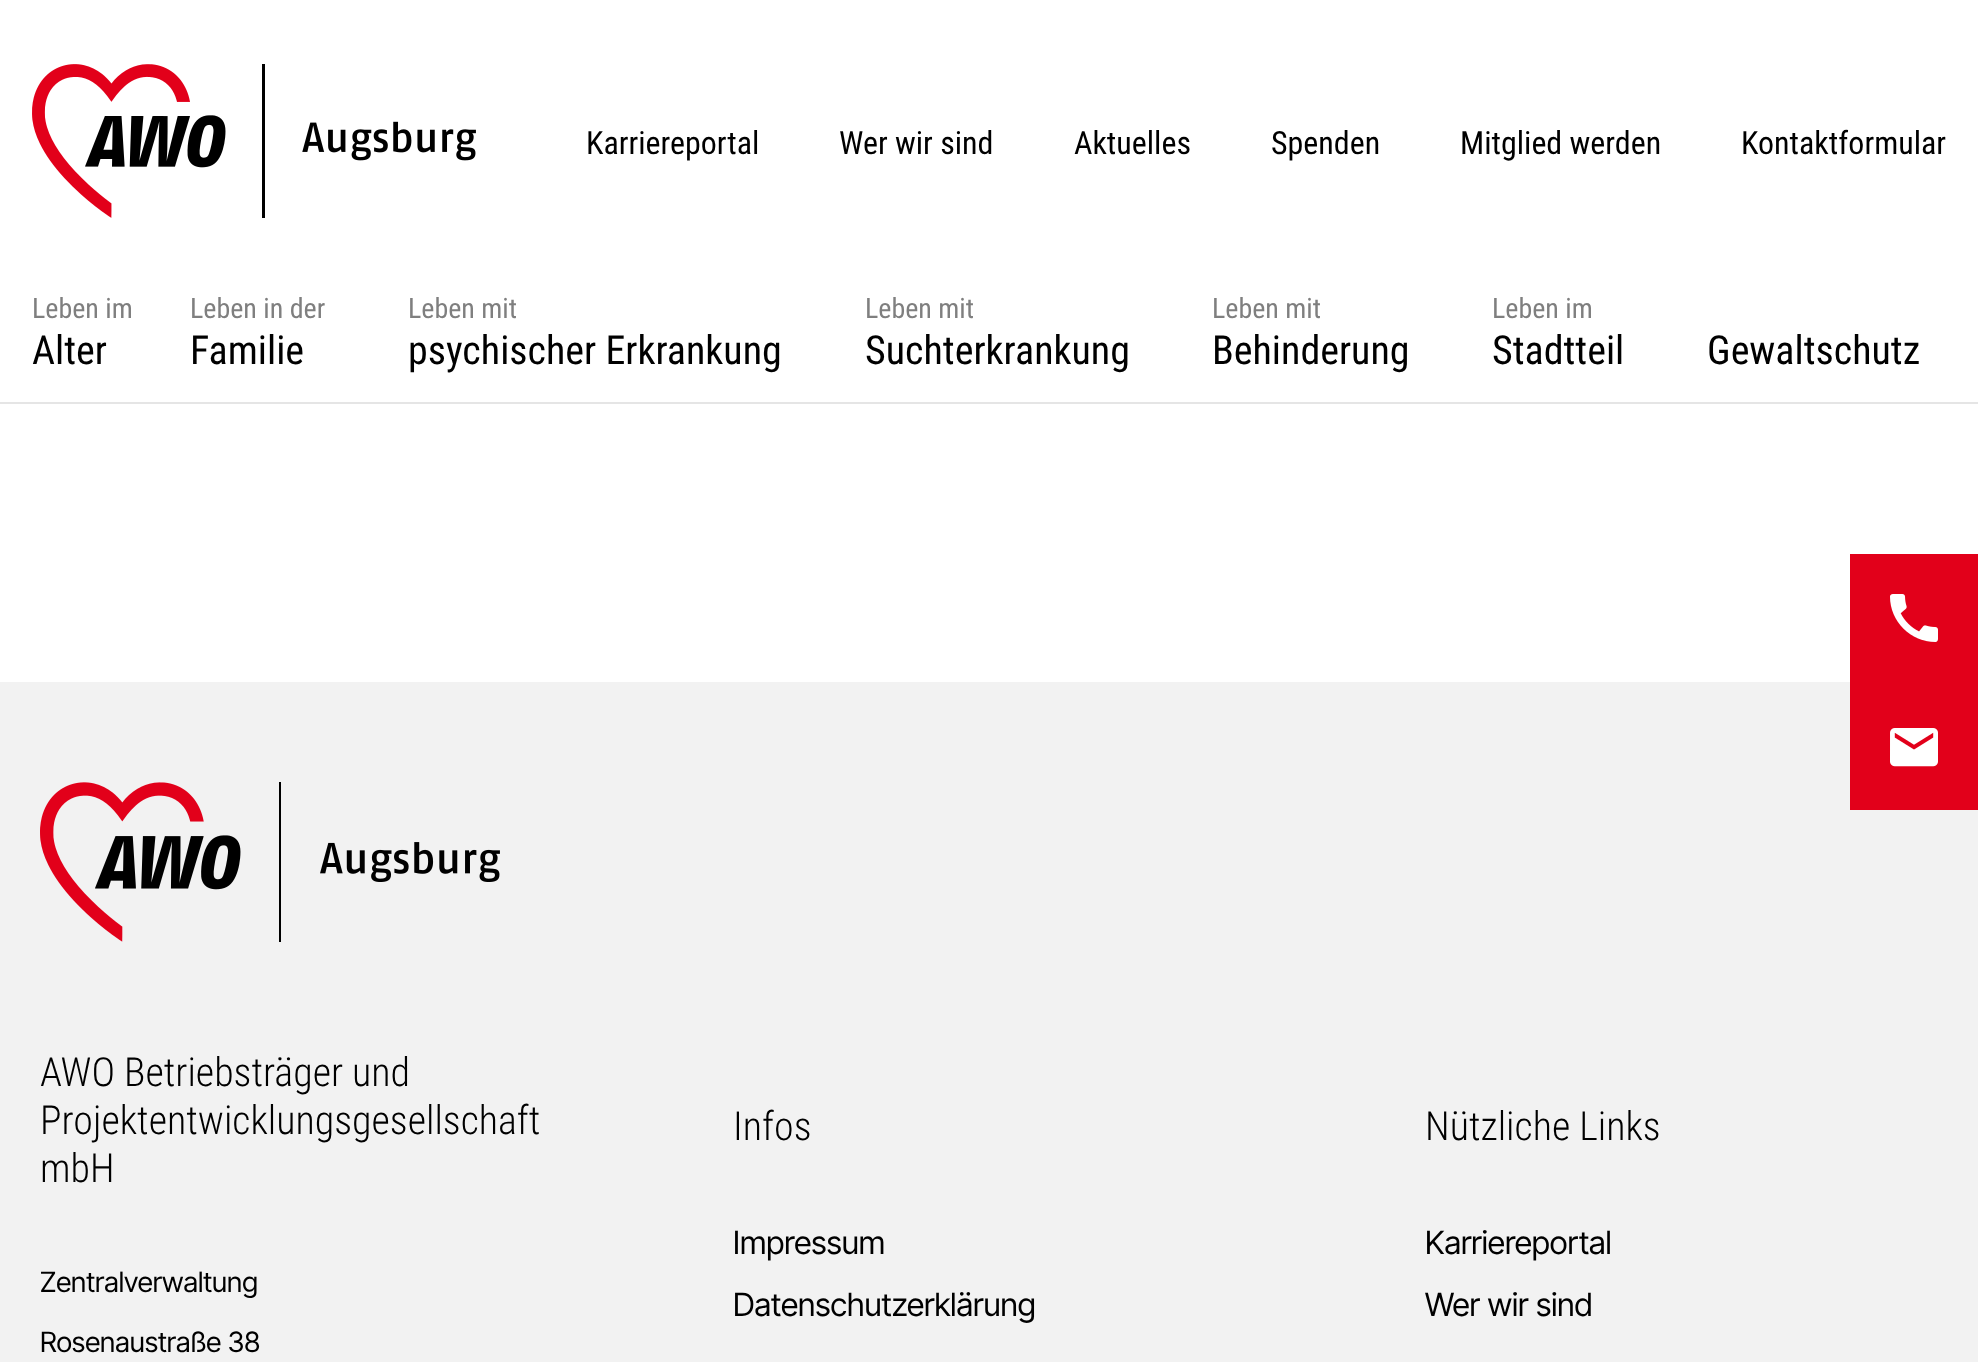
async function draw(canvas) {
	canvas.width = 1978;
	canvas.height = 1362;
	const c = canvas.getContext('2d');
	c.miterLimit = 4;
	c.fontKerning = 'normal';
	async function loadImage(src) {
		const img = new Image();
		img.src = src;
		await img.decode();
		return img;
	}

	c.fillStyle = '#fff';
	c.fillRect(0, 0, 1978, 1362);
	c.fillStyle = '#e5e5e5';
	c.fillRect(0, 402, 1978, 2);
	c.drawImage(await loadImage('img1.png'), 32, 64, 444, 154);
	c.font = '32px Roboto Condensed';
	c.fillStyle = '#000';
	for (const [text, x, y] of [
		['Karriereportal', 586, 154],
		['Wer wir sind', 839, 154],
		['Aktuelles', 1074, 154],
		['Spenden', 1271, 154],
		['Mitglied werden', 1460, 154],
		['Kontaktformular', 1741, 154],
	]) {
		c.fillText(text, x, y);
	}
	c.font = '28px Roboto Condensed';
	c.fillStyle = '#7f7f7f';
	c.fillText('Leben im', 32, 318);
	c.font = '40px Roboto Condensed';
	c.fillStyle = '#000';
	c.fillText('Alter', 32, 364);
	c.font = '28px Roboto Condensed';
	c.fillStyle = '#7f7f7f';
	c.fillText('Leben in der', 190, 318);
	c.font = '40px Roboto Condensed';
	c.fillStyle = '#000';
	c.fillText('Familie', 190, 364);
	c.font = '28px Roboto Condensed';
	c.fillStyle = '#7f7f7f';
	c.fillText('Leben mit', 408, 318);
	c.font = '40px Roboto Condensed';
	c.fillStyle = '#000';
	c.fillText('psychischer Erkrankung', 408, 364);
	c.font = '28px Roboto Condensed';
	c.fillStyle = '#7f7f7f';
	c.fillText('Leben mit', 865, 318);
	c.font = '40px Roboto Condensed';
	c.fillStyle = '#000';
	c.fillText('Suchterkrankung', 865, 364);
	c.font = '28px Roboto Condensed';
	c.fillStyle = '#7f7f7f';
	c.fillText('Leben mit', 1212, 318);
	c.font = '40px Roboto Condensed';
	c.fillStyle = '#000';
	c.fillText('Behinderung', 1212, 364);
	c.font = '28px Roboto Condensed';
	c.fillStyle = '#7f7f7f';
	c.fillText('Leben im', 1492, 318);
	c.font = '40px Roboto Condensed';
	c.fillStyle = '#000';
	c.fillText('Stadtteil', 1492, 364);
	c.fillText('Gewaltschutz', 1707, 364);
	c.fillStyle = '#f2f2f2';
	c.fillRect(0, 682, 1978, 680);
	c.fillStyle = '#e2001a';
	c.fillRect(1850, 554, 128, 256);
	c.drawImage(await loadImage('img2.png'), 1890, 594, 48, 48);
	c.drawImage(await loadImage('img3.png'), 1890, 728, 48, 39);
	c.drawImage(await loadImage('img4.png'), 40, 782, 460, 160);
	c.font = '300 40px Roboto Condensed';
	c.fillStyle = '#000';
	for (const [text, x, y] of [
		['AWO Betriebsträger und', 40, 1086],
		['Projektentwicklungsgesellschaft', 40, 1134],
		['mbH', 40, 1182],
	]) {
		c.fillText(text, x, y);
	}
	c.font = '28px Inter Tight';
	c.fillText('Zentralverwaltung', 40, 1292);
	c.fillText('Rosenaustraße 38', 40, 1352);
	c.font = '300 40px Roboto Condensed';
	c.fillText('Infos', 733, 1140);
	c.font = '32px Inter Tight';
	c.fillText('Impressum', 733, 1254);
	c.fillText('Datenschutzerklärung', 733, 1316);
	c.font = '300 40px Roboto Condensed';
	c.fillText('Nützliche Links', 1425, 1140);
	c.font = '32px Inter Tight';
	c.fillText('Karriereportal', 1425, 1254);
	c.fillText('Wer wir sind', 1425, 1316);
}

draw(document.querySelector('canvas'));
